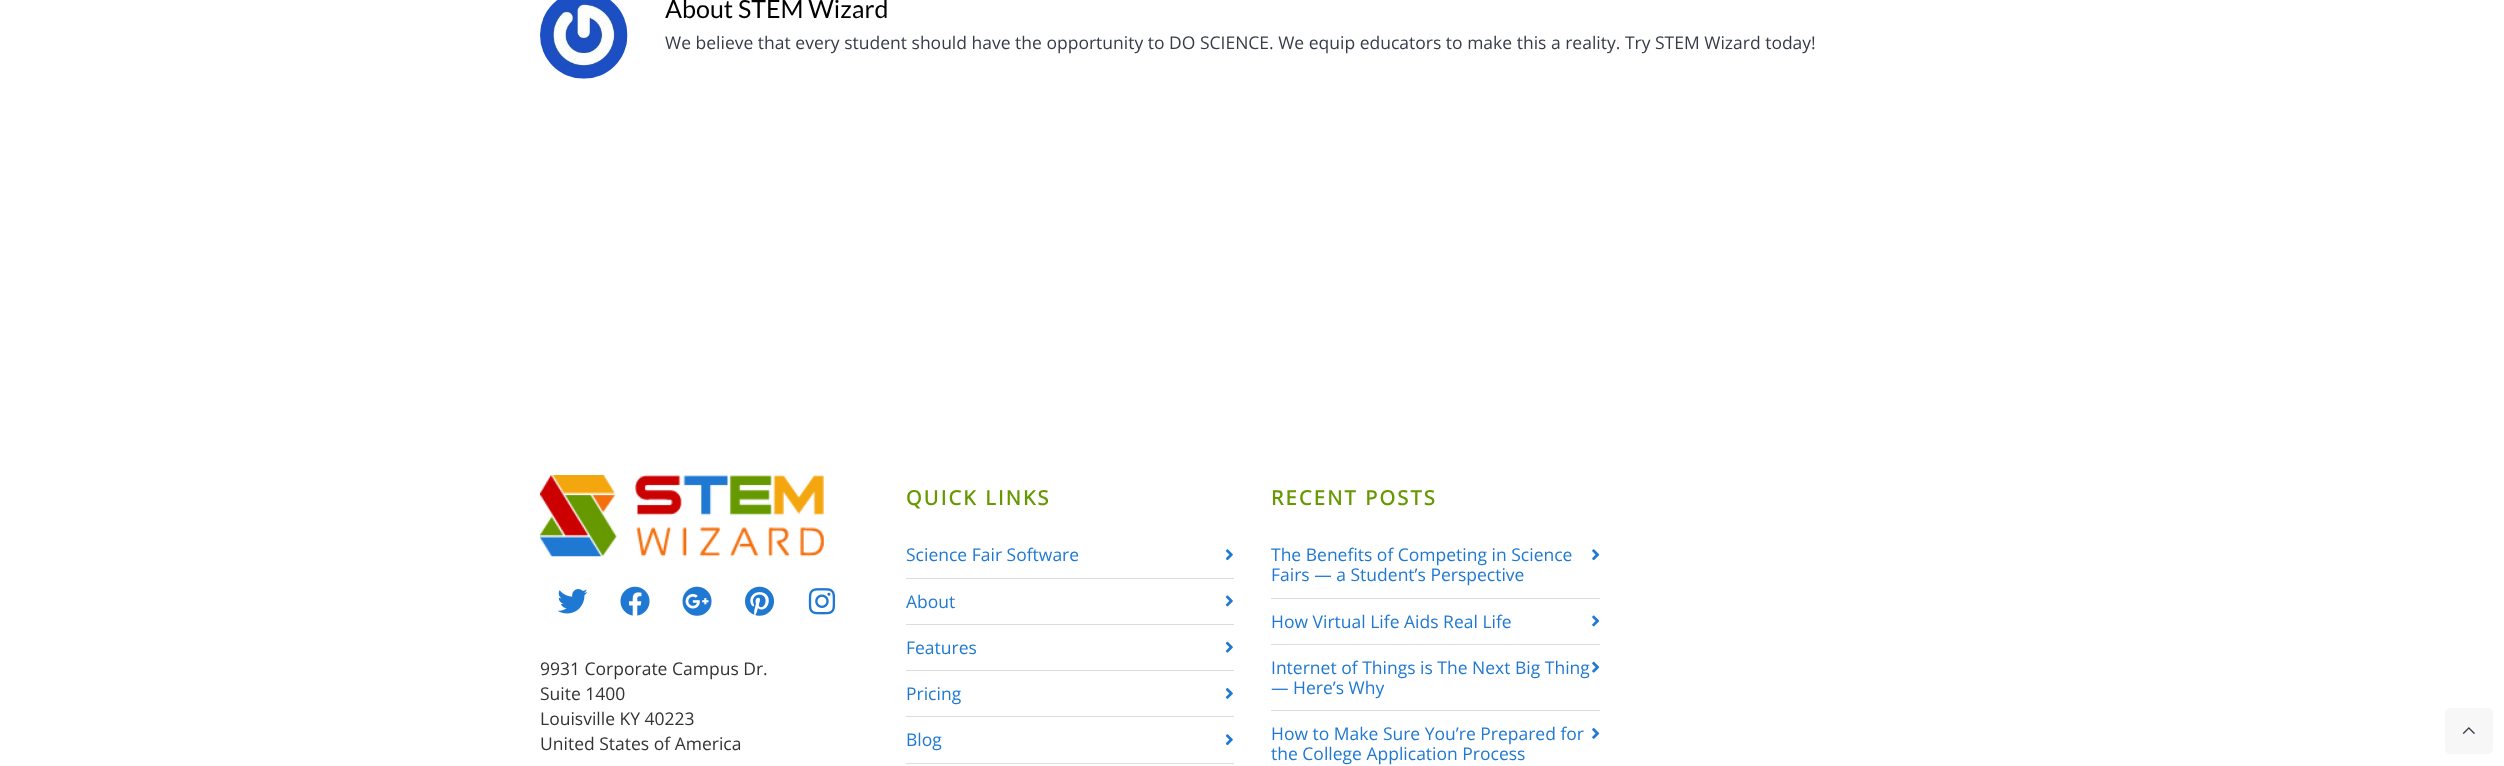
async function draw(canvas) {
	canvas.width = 2504;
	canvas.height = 766;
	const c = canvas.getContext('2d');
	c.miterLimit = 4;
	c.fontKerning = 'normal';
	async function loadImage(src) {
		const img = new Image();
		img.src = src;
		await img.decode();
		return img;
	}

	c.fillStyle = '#fff';
	c.fillRect(0, 0, 2504, 766);
	c.drawImage(await loadImage('img1.png'), 540, 0, 88, 79);
	c.font = '25px Lato';
	c.fillStyle = '#000';
	c.fillText('About STEM Wizard', 665, 18);
	c.font = '17.5px Open Sans';
	c.fillStyle = '#383c4a';
	c.fillText('We believe that every student should have the opportunity to DO SCIENCE. We equip educators to make this a reality. Try STEM Wizard today!', 665, 49);
	c.drawImage(await loadImage('img2.png'), 540, 475, 284, 82);
	c.drawImage(await loadImage('img3.png'), 557, 589, 31, 25);
	c.drawImage(await loadImage('img4.png'), 620, 586, 30, 30);
	c.drawImage(await loadImage('img5.png'), 682, 586, 30, 30);
	c.drawImage(await loadImage('img6.png'), 745, 586, 30, 30);
	c.drawImage(await loadImage('img7.png'), 808, 588, 28, 27);
	c.fillStyle = '#333';
	for (const [text, x, y] of [
		['9931 Corporate Campus Dr.', 540, 675],
		['Suite 1400', 540, 700],
		['Louisville KY 40223', 540, 725],
		['United States of America', 540, 750],
	]) {
		c.fillText(text, x, y);
	}
	c.letterSpacing = '2.25px';
	c.font = 'bold 20px Open Sans';
	c.fillStyle = '#690';
	c.fillText('QUICK LINKS', 906, 505);
	c.letterSpacing = '0px';
	c.font = '17.5px Open Sans';
	c.fillStyle = '#1f78d2';
	c.fillText('Science Fair Software', 906, 561);
	c.drawImage(await loadImage('img8.png'), 1225, 549, 8, 12);
	c.fillStyle = '#ddd';
	c.fillRect(906, 578, 328, 1);
	c.fillStyle = '#1f78d2';
	c.fillText('About', 906, 608);
	c.drawImage(await loadImage('img9.png'), 1225, 595, 8, 12);
	c.fillStyle = '#ddd';
	c.fillRect(906, 624, 328, 1);
	c.fillStyle = '#1f78d2';
	c.fillText('Features', 906, 654);
	c.drawImage(await loadImage('img10.png'), 1225, 641, 8, 12);
	c.fillStyle = '#ddd';
	c.fillRect(906, 670, 328, 1);
	c.fillStyle = '#1f78d2';
	c.fillText('Pricing', 906, 700);
	c.drawImage(await loadImage('img11.png'), 1225, 688, 8, 11);
	c.fillStyle = '#ddd';
	c.fillRect(906, 716, 328, 1);
	c.fillStyle = '#1f78d2';
	c.fillText('Blog', 906, 746);
	c.drawImage(await loadImage('img8.png'), 1225, 734, 8, 12);
	c.fillStyle = '#ddd';
	c.fillRect(906, 763, 328, 1);
	c.letterSpacing = '2.25px';
	c.font = 'bold 20px Open Sans';
	c.fillStyle = '#690';
	c.fillText('RECENT POSTS', 1271, 505);
	c.letterSpacing = '0px';
	c.font = '17.5px Open Sans';
	c.fillStyle = '#1f78d2';
	c.fillText('The Benefits of Competing in Science', 1271, 561);
	c.drawImage(await loadImage('img12.png'), 1592, 549, 8, 12);
	c.fillText('Fairs — a Student’s Perspective', 1271, 581);
	c.fillStyle = '#ddd';
	c.fillRect(1271, 598, 329, 1);
	c.fillStyle = '#1f78d2';
	c.fillText('How Virtual Life Aids Real Life', 1271, 628);
	c.drawImage(await loadImage('img13.png'), 1592, 615, 8, 12);
	c.fillStyle = '#ddd';
	c.fillRect(1271, 644, 329, 1);
	c.fillStyle = '#1f78d2';
	c.fillText('Internet of Things is The Next Big Thing', 1271, 674);
	c.drawImage(await loadImage('img14.png'), 1592, 661, 8, 12);
	c.fillText('— Here’s Why', 1271, 694);
	c.fillStyle = '#ddd';
	c.fillRect(1271, 710, 329, 1);
	c.fillStyle = '#1f78d2';
	c.fillText('How to Make Sure You’re Prepared for', 1271, 740);
	c.drawImage(await loadImage('img15.png'), 1592, 728, 8, 11);
	c.fillText('the College Application Process', 1271, 760);
	c.fillStyle = '#f7f7f7';
	c.beginPath();
	c.roundRect(2445, 708, 48, 46, 5);
	c.fill();
	c.drawImage(await loadImage('img16.png'), 2462, 727, 13, 7);
}

draw(document.querySelector('canvas'));
